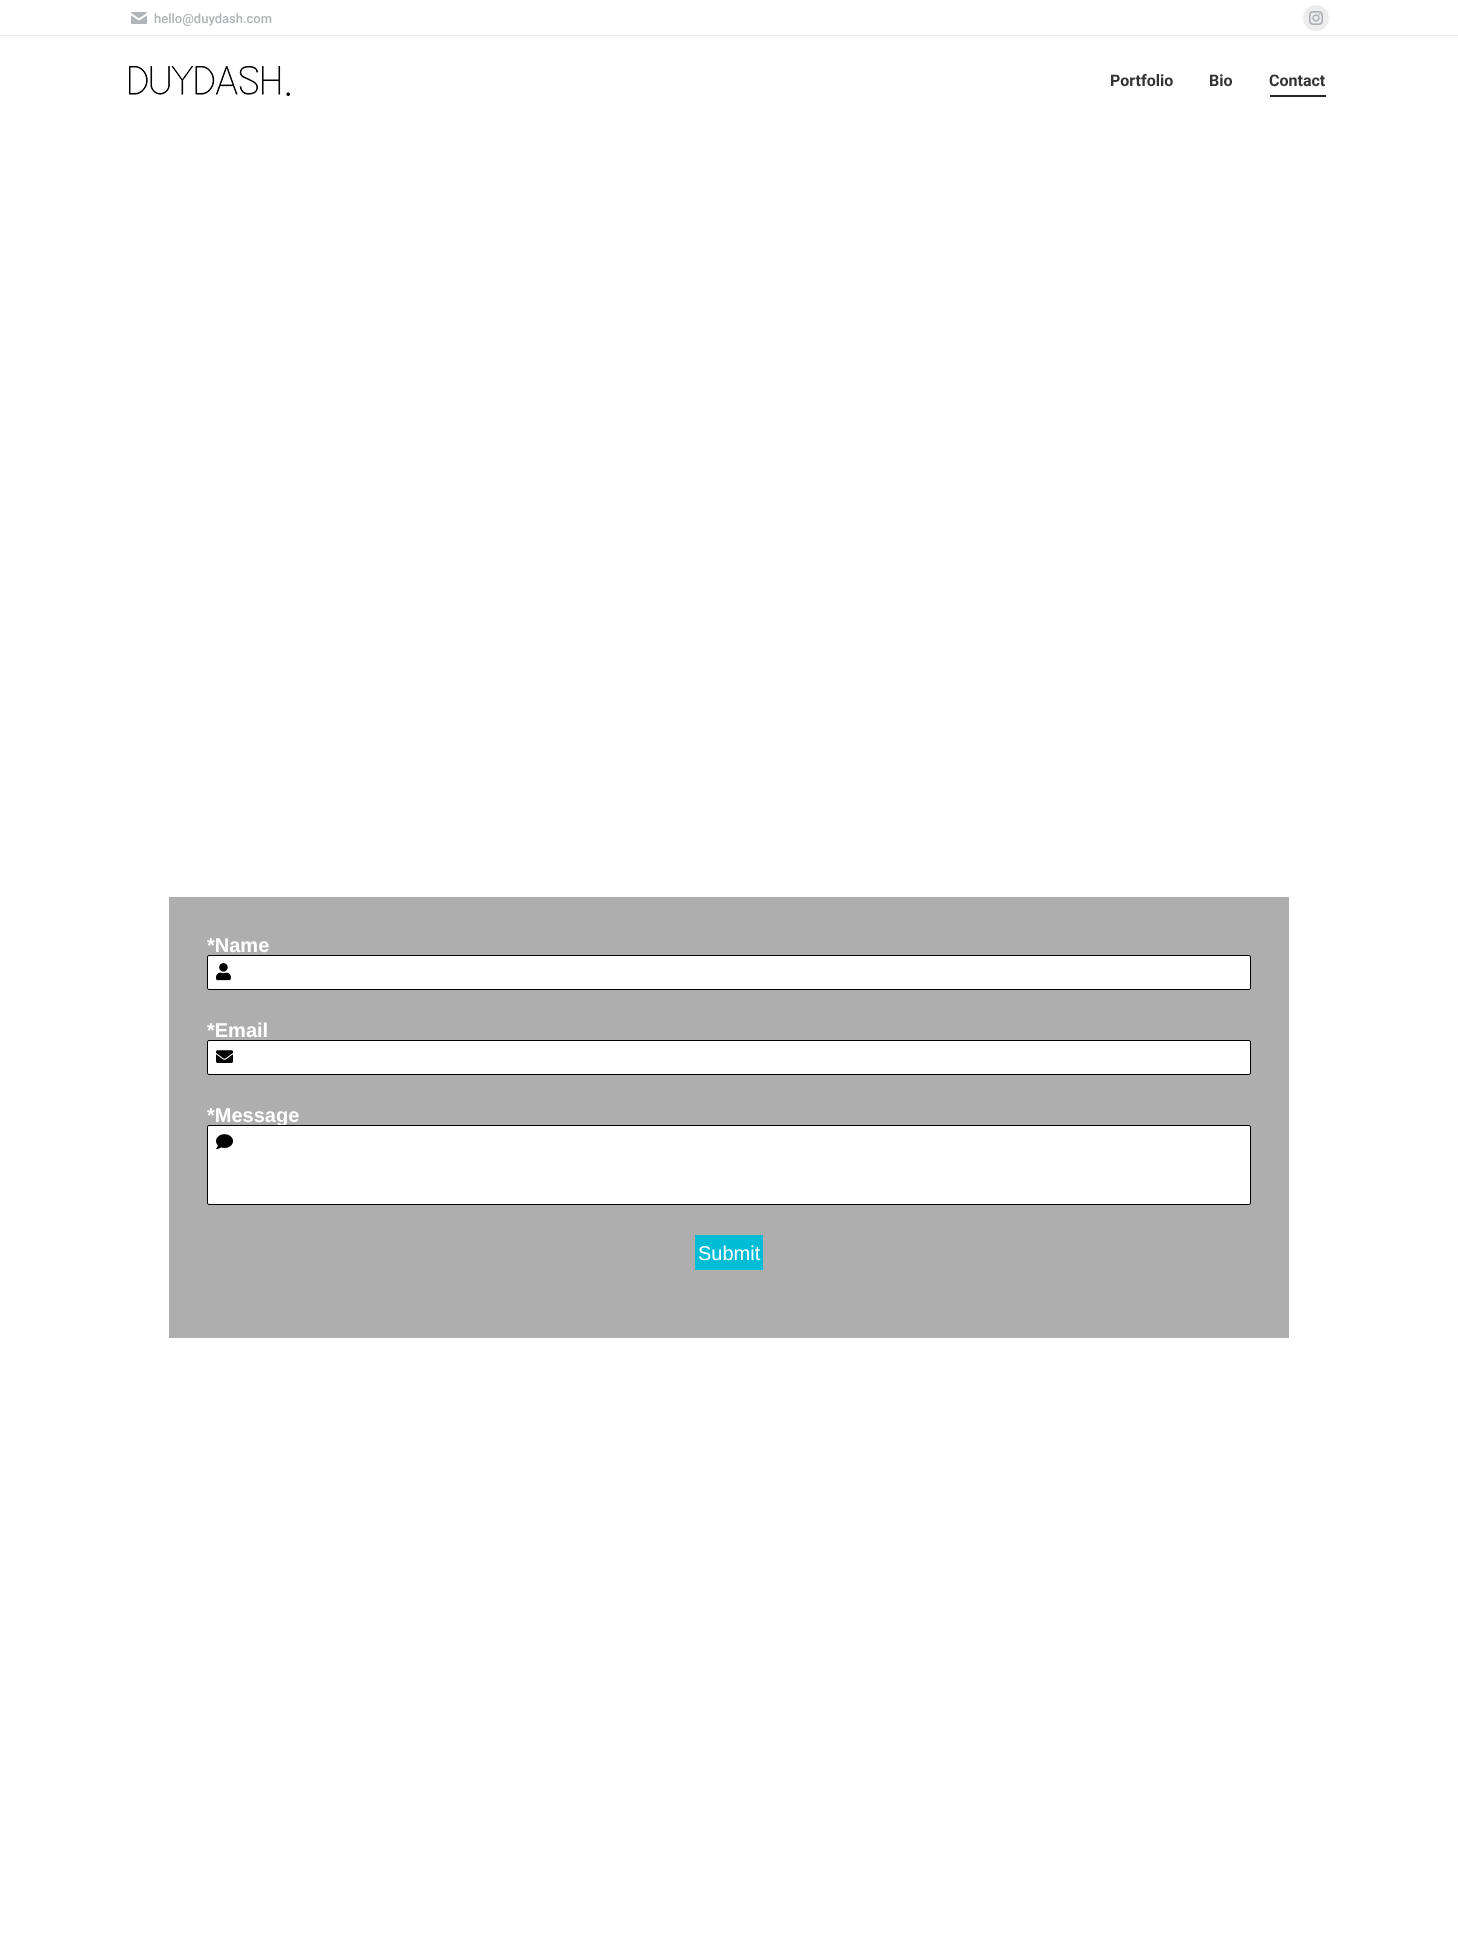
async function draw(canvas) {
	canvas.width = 1458;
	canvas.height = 1958;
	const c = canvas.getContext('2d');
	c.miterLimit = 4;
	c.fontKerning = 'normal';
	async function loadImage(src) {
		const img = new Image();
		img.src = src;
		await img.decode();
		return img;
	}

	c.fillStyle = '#fff';
	c.fillRect(0, 0, 1458, 1958);
	c.drawImage(await loadImage('img1.png'), 131, 12, 16, 12);
	c.font = '500 13px Roboto';
	c.fillStyle = '#b1b4b8';
	c.fillText('hello@duydash.com', 154, 23);
	c.fillStyle = '#ededed';
	c.beginPath();
	c.arc(1316, 18, 13, 0, 2 * Math.PI);
	c.fill();
	c.drawImage(await loadImage('img2.png'), 1309, 11, 14, 14);
	c.fillStyle = '#e9e9e9';
	c.fillRect(0, 35, 1458, 1);
	c.drawImage(await loadImage('img3.png'), 129, 66, 161, 30);
	c.font = 'bold 16px Roboto';
	c.fillStyle = '#333';
	for (const [text, x, y] of [
		['Portfolio', 1110, 86],
		['Bio', 1209, 86],
		['Contact', 1269, 86],
	]) {
		c.fillText(text, x, y);
	}
	c.fillStyle = '#262626';
	c.fillRect(1270, 95, 56, 2);
	c.fillStyle = '#aeaeae';
	c.fillRect(169, 897, 1120, 441);
	c.font = 'bold 20px Liberation Sans';
	c.fillStyle = '#fff';
	c.fillText('*Name', 207, 952);
	c.beginPath();
	c.roundRect(207.5, 955.5, 1043, 34, 1.5);
	c.fill();
	c.strokeStyle = '#000';
	c.stroke();
	c.drawImage(await loadImage('img4.png'), 216, 963, 15, 18);
	c.fillText('*Email', 207, 1037);
	c.beginPath();
	c.roundRect(207.5, 1040.5, 1043, 34, 1.5);
	c.fill();
	c.stroke();
	c.drawImage(await loadImage('img5.png'), 216, 1050, 17, 13);
	c.fillText('*Message', 207, 1122);
	c.beginPath();
	c.roundRect(207.5, 1125.5, 1043, 79, 1.5);
	c.fill();
	c.stroke();
	c.drawImage(await loadImage('img6.png'), 216, 1134, 17, 16);
	c.fillStyle = '#00bcd4';
	c.fillRect(695, 1235, 68, 35);
	c.font = '20px Liberation Sans';
	c.fillStyle = '#fff';
	c.fillText('Submit', 698, 1260);
}

draw(document.querySelector('canvas'));
